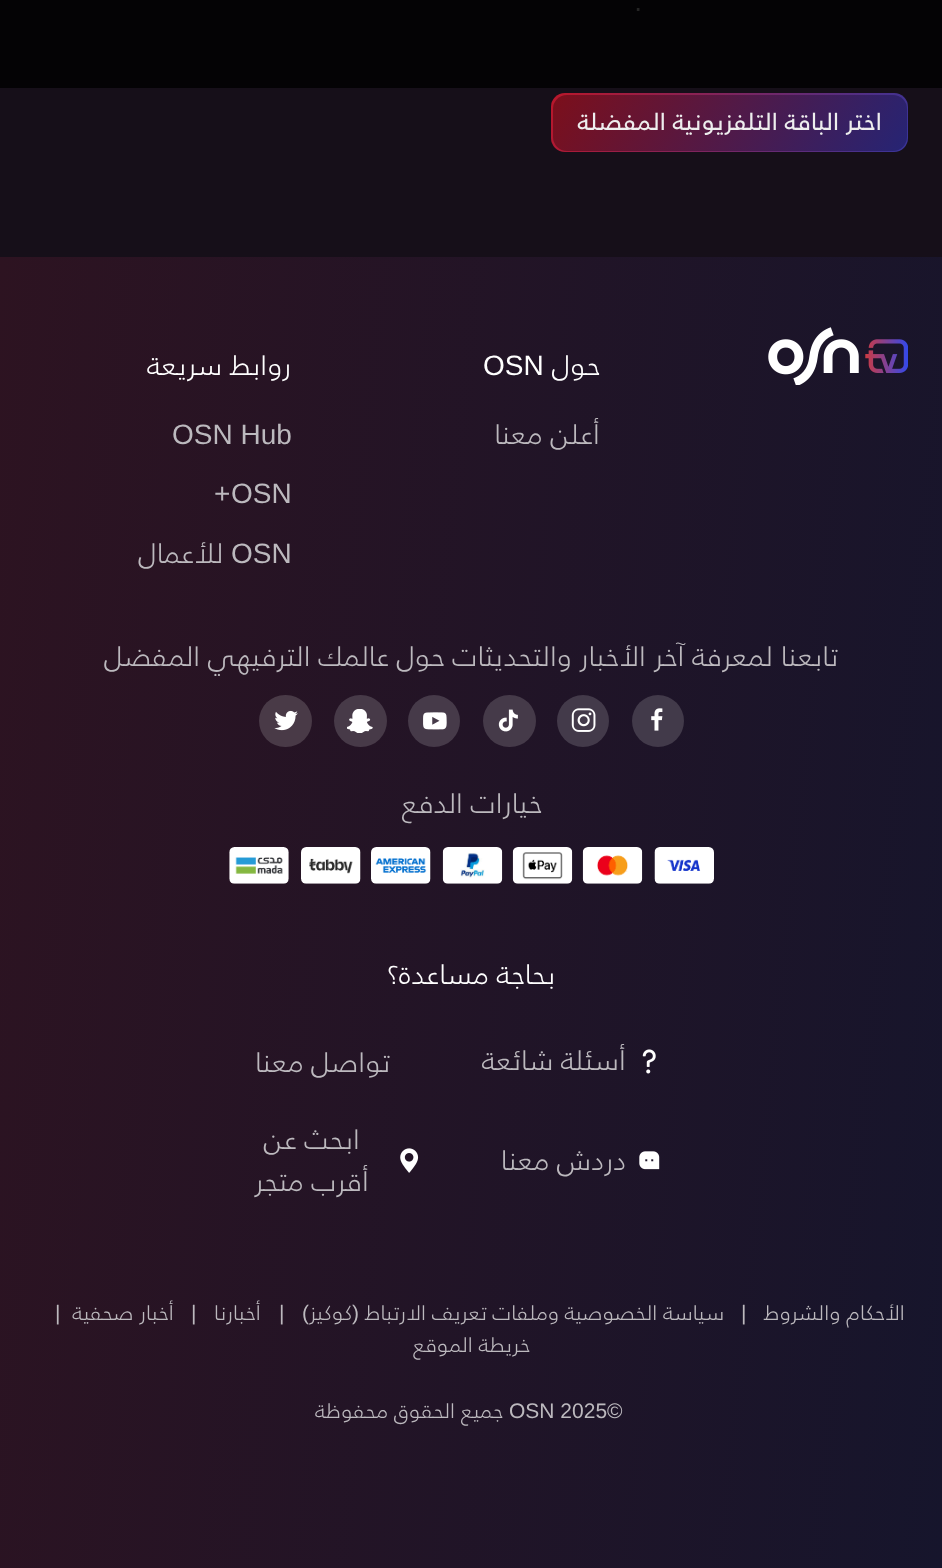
async function draw(canvas) {
	canvas.width = 942;
	canvas.height = 1568;
	const c = canvas.getContext('2d');
	c.miterLimit = 4;
	c.fontKerning = 'normal';
	async function loadImage(src) {
		const img = new Image();
		img.src = src;
		await img.decode();
		return img;
	}
	let gradient;

	c.fillStyle = '#fff';
	c.fillRect(0, 0, 942, 1568);
	c.fillStyle = '#160f19';
	c.fillRect(0, 88, 942, 169);
	c.fillStyle = '#040305';
	c.fillRect(0, 0, 942, 88);
	c.direction = 'rtl';
	c.font = '28px Liberation Sans';
	c.fillStyle = '#252525';
	c.fillText('.', 642, 11);
	gradient = c.createLinearGradient(883, 201, 576, 44);
	gradient.addColorStop(0, '#38349a');
	gradient.addColorStop(1, '#ba172a');
	c.fillStyle = gradient;
	c.beginPath();
	c.roundRect(551, 93, 357, 59, 14);
	c.fill();
	gradient = c.createLinearGradient(590, 35, 869, 210);
	gradient.addColorStop(0, '#7c0f1b');
	gradient.addColorStop(1, '#262474');
	c.fillStyle = gradient;
	c.beginPath();
	c.roundRect(553, 95, 354, 56, 14);
	c.fill();
	c.font = '24.5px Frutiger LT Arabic';
	c.fillStyle = '#eee';
	c.fillText('اختر الباقة التلفزيونية المفضلة', 882, 130);
	gradient = c.createLinearGradient(-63, 856, 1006, 969);
	gradient.addColorStop(0, '#2d1321');
	gradient.addColorStop(1, '#16152c');
	c.fillStyle = gradient;
	c.fillRect(0, 257, 942, 1311);
	c.drawImage(await loadImage('img1.png'), 768, 327, 140, 58);
	c.font = '300 28px Frutiger LT Arabic';
	c.fillStyle = '#fff';
	c.fillText('حول', 600, 375);
	c.direction = 'ltr';
	c.font = '28px Liberation Sans';
	c.fillText('OSN', 483, 375);
	c.direction = 'rtl';
	c.font = '300 28px Frutiger LT Arabic';
	c.fillStyle = '#bcb9be';
	c.fillText('أعلن معنا', 600, 444);
	c.fillStyle = '#fff';
	c.fillText('روابط سريعة', 291, 375);
	c.direction = 'ltr';
	c.font = '28px Liberation Sans';
	c.fillStyle = '#bcb9be';
	for (const [text, x, y] of [
		['OSN Hub', 172, 444],
		['OSN', 231, 503],
		['+', 214, 503],
		['OSN', 231, 563],
	]) {
		c.fillText(text, x, y);
	}
	c.direction = 'rtl';
	c.font = '300 28px Frutiger LT Arabic';
	c.fillText('للأعمال', 223, 563);
	c.fillText('تابعنا لمعرفة آخر الأخبار والتحديثات حول عالمك الترفيهي المفضل', 838, 666);
	c.fillStyle = '#423a4a';
	c.beginPath();
	c.arc(658, 721, 26, 0, 2 * Math.PI);
	c.fill();
	c.drawImage(await loadImage('img2.png'), 651, 708, 12, 23);
	c.fillStyle = '#433a4a';
	c.beginPath();
	c.arc(583, 721, 26, 0, 2 * Math.PI);
	c.fill();
	c.drawImage(await loadImage('img3.png'), 571, 708, 25, 24);
	c.fillStyle = '#453a49';
	c.beginPath();
	c.roundRect(483, 695, 53, 52, 26);
	c.fill();
	c.drawImage(await loadImage('img4.png'), 498, 709, 20, 23);
	c.fillStyle = '#463a49';
	c.beginPath();
	c.arc(434, 721, 26, 0, 2 * Math.PI);
	c.fill();
	c.drawImage(await loadImage('img5.png'), 423, 712, 24, 18);
	c.fillStyle = '#473a48';
	c.beginPath();
	c.roundRect(334, 695, 53, 52, 26);
	c.fill();
	c.drawImage(await loadImage('img6.png'), 347, 709, 26, 24);
	c.fillStyle = '#493a47';
	c.beginPath();
	c.roundRect(259, 695, 53, 52, 26);
	c.fill();
	c.drawImage(await loadImage('img7.png'), 274, 710, 24, 21);
	c.fillStyle = '#bcb9be';
	c.fillText('خيارات الدفع', 542, 813);
	c.drawImage(await loadImage('img8.png'), 654, 847, 60, 37);
	c.drawImage(await loadImage('img9.png'), 582, 847, 61, 37);
	c.drawImage(await loadImage('img10.png'), 512, 847, 61, 37);
	c.drawImage(await loadImage('img11.png'), 442, 847, 61, 37);
	c.drawImage(await loadImage('img12.png'), 371, 847, 60, 37);
	c.drawImage(await loadImage('img13.png'), 301, 847, 60, 37);
	c.drawImage(await loadImage('img14.png'), 229, 847, 60, 37);
	c.fillStyle = '#fff';
	c.fillText('بحاجة مساعدة؟', 555, 984);
	c.drawImage(await loadImage('img15.png'), 642, 1049, 14, 25);
	c.fillStyle = '#bcb9be';
	c.fillText('أسئلة شائعة', 626, 1070);
	c.fillText('تواصل معنا', 390, 1072);
	c.drawImage(await loadImage('img16.png'), 639, 1151, 21, 19);
	c.fillText('دردش معنا', 626, 1170);
	c.fillText('ابحث عن', 360, 1149);
	c.drawImage(await loadImage('img17.png'), 400, 1148, 19, 25);
	c.fillText('أقرب متجر', 369, 1191);
	c.font = '300 21px Frutiger LT Arabic';
	c.fillText('الأحكام والشروط', 905, 1320);
	c.direction = 'ltr';
	c.font = '21px Liberation Sans';
	c.fillText('|', 741, 1320);
	c.direction = 'rtl';
	c.font = '300 21px Frutiger LT Arabic';
	c.fillText('سياسة الخصوصية وملفات تعريف الارتباط', 724, 1320);
	c.font = '21px Liberation Sans';
	c.fillText('(', 359, 1320);
	c.font = '300 21px Frutiger LT Arabic';
	c.fillText('كوكيز', 352, 1320);
	c.font = '21px Liberation Sans';
	c.fillText(')', 309, 1320);
	c.direction = 'ltr';
	c.fillText('|', 279, 1320);
	c.direction = 'rtl';
	c.font = '300 21px Frutiger LT Arabic';
	c.fillText('أخبارنا', 261, 1320);
	c.direction = 'ltr';
	c.font = '21px Liberation Sans';
	c.fillText('|', 191, 1320);
	c.direction = 'rtl';
	c.font = '300 21px Frutiger LT Arabic';
	c.fillText('أخبار صحفية', 174, 1320);
	c.direction = 'ltr';
	c.font = '21px Liberation Sans';
	c.fillText('|', 55, 1320);
	c.direction = 'rtl';
	c.font = '300 21px Frutiger LT Arabic';
	c.fillText('خريطة الموقع', 530, 1352);
	c.direction = 'ltr';
	c.font = '21px Liberation Sans';
	c.fillText('©', 607, 1418);
	c.fillText('OSN 2025', 509, 1418);
	c.direction = 'rtl';
	c.font = '300 21px Frutiger LT Arabic';
	c.fillText('جميع الحقوق محفوظة', 503, 1418);
}

draw(document.querySelector('canvas'));
